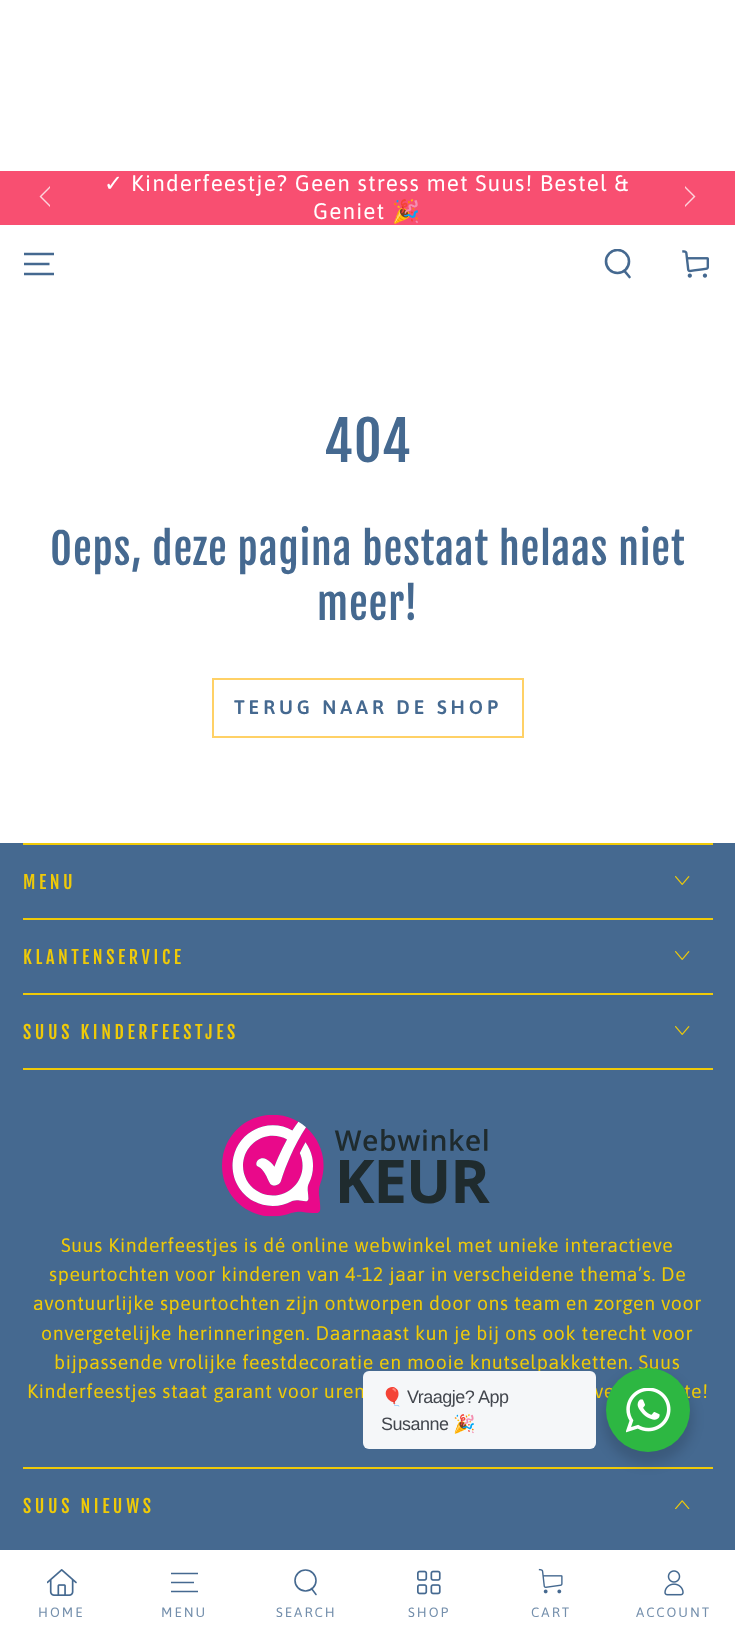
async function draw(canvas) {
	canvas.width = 735;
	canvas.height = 1639;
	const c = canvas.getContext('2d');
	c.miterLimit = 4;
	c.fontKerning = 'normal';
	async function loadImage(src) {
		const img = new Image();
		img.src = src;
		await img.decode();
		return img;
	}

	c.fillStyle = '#fff';
	c.fillRect(0, 0, 735, 1639);
	c.fillStyle = '#f84f71';
	c.fillRect(0, 171, 735, 54);
	c.letterSpacing = '1.15px';
	c.font = '22.5px DejaVu Sans';
	c.fillStyle = '#fff';
	c.fillText('✓', 104, 191);
	c.font = '22.5px Asap';
	c.fillText('Kinderfeestje? Geen stress met Suus! Bestel &', 131, 191);
	c.fillText('Geniet', 313, 219);
	c.font = '22.5px Noto Color Emoji';
	c.fillText('🎉', 392, 219);
	c.fillStyle = '#fdd3dc';
	c.beginPath();
	c.moveTo(39.5, 196.5);
	c.lineTo(50, 207);
	c.lineTo(50, 205);
	c.lineTo(41.5, 196.5);
	c.lineTo(50, 188);
	c.lineTo(50, 186);
	c.closePath();
	c.fill('evenodd');
	c.beginPath();
	c.moveTo(695.5, 196.5);
	c.lineTo(685, 207);
	c.lineTo(685, 205);
	c.lineTo(693.5, 196.5);
	c.lineTo(685, 188);
	c.lineTo(685, 186);
	c.closePath();
	c.fill('evenodd');
	c.beginPath();
	c.moveTo(24, 274);
	c.lineTo(54, 274);
	c.moveTo(24, 264);
	c.lineTo(49.5, 264);
	c.moveTo(24, 254);
	c.lineTo(54, 254);
	c.strokeStyle = '#456990';
	c.lineWidth = 2.4;
	c.stroke();
	c.save();
	c.beginPath();
	c.rect(603, 249, 30, 30);
	c.clip();
	c.beginPath();
	c.arc(617.5, 261.5, 11.5, 0, 2 * Math.PI);
	c.lineWidth = 2.6;
	c.stroke();
	c.restore();
	c.beginPath();
	c.moveTo(624.5, 271);
	c.lineTo(629.5, 277);
	c.lineWidth = 2.6;
	c.lineCap = 'round';
	c.stroke();
	c.drawImage(await loadImage('img1.png'), 682, 250, 27, 28);
	c.letterSpacing = '0.9px';
	c.font = '54px Fjalla One';
	c.fillStyle = '#456990';
	c.fillText('404', 324, 462);
	c.font = '42px Fjalla One';
	c.fillText('Oeps, deze pagina bestaat helaas niet', 50, 565);
	c.fillText('meer!', 317, 620);
	c.strokeStyle = '#ffd166';
	c.lineWidth = 2;
	c.strokeRect(213, 679, 310, 58);
	c.letterSpacing = '3.9px';
	c.font = '600 19.5px Asap';
	c.fillText('TERUG NAAR DE SHOP', 234, 714);
	for (const [x, y, w, h, color] of [
		[0, 843, 735, 707, '#456990'],
		[23, 843, 690, 2, '#efca08'],
		[23, 918, 690, 2, '#efca08'],
	]) {
		c.fillStyle = color;
		c.fillRect(x, y, w, h);
	}
	c.letterSpacing = '3.6px';
	c.font = '18px Fjalla One';
	c.fillText('MENU', 23, 889);
	c.drawImage(await loadImage('img2.png'), 675, 876, 15, 9);
	c.fillRect(23, 993, 690, 2);
	c.fillText('KLANTENSERVICE', 23, 964);
	c.drawImage(await loadImage('img2.png'), 675, 951, 15, 9);
	c.fillRect(23, 1068, 690, 2);
	c.fillText('SUUS KINDERFEESTJES', 23, 1039);
	c.drawImage(await loadImage('img2.png'), 675, 1026, 15, 9);
	c.fillRect(23, 1467, 690, 2);
	c.drawImage(await loadImage('img3.png'), 222, 1115, 268, 102);
	c.letterSpacing = '0.6px';
	c.font = '19.5px Asap';
	for (const [text, x, y] of [
		['Suus Kinderfeestjes is dé online webwinkel met unieke interactieve', 61, 1252],
		['speurtochten voor kinderen van 4-12 jaar in verscheidene thema’s. De', 49, 1281],
		['avontuurlijke speurtochten zijn ontworpen door ons team en zorgen voor', 33, 1310],
		['onvergetelijke herinneringen. Daarnaast kun je bij ons ook terecht voor', 41, 1340],
		['bijpassende vrolijke feestdecoratie en mooie knutselpakketten. Suus', 54, 1369],
		['Kinderfeestjes staat garant voor uren', 27, 1398],
		['ve', 594, 1398],
		['te!', 684, 1398],
	]) {
		c.fillText(text, x, y);
	}
	c.letterSpacing = '3.6px';
	c.font = '18px Fjalla One';
	c.fillText('SUUS NIEUWS', 23, 1513);
	c.drawImage(await loadImage('img4.png'), 675, 1500, 15, 9);
	c.fillStyle = '#00000024';
	c.filter = 'blur(6px)';
	c.beginPath();
	c.roundRect(603, 1374, 90, 90, 45);
	c.fill();
	c.filter = 'none';
	c.fillStyle = '#f5f7f9';
	c.beginPath();
	c.roundRect(363, 1371, 233, 78, 6);
	c.fill();
	c.letterSpacing = '-0.5px';
	c.font = '18px Noto Color Emoji';
	c.fillStyle = '#43474e';
	c.fillText('🎈', 381, 1403);
	c.font = '18px Liberation Sans';
	c.fillText('Vraagje? App', 407, 1403);
	c.fillText('Susanne', 381, 1430);
	c.font = '18px Noto Color Emoji';
	c.fillText('🎉', 453, 1430);
	c.fillStyle = '#2db742';
	c.beginPath();
	c.arc(648, 1410, 42, 0, 2 * Math.PI);
	c.fill();
	c.drawImage(await loadImage('img5.png'), 626, 1388, 45, 45);
	c.drawImage(await loadImage('img6.png'), 47, 1569, 30, 27);
	c.letterSpacing = '2px';
	c.font = '13.5px Asap';
	c.fillStyle = '#748fac';
	c.fillText('HOME', 38, 1617);
	c.beginPath();
	c.moveTo(171, 1591.5);
	c.lineTo(198, 1591.5);
	c.moveTo(171, 1582.5);
	c.lineTo(194, 1582.5);
	c.moveTo(171, 1573.5);
	c.lineTo(198, 1573.5);
	c.strokeStyle = '#456990';
	c.lineWidth = 1.7;
	c.lineCap = 'butt';
	c.stroke();
	c.fillText('MENU', 161, 1617);
	c.beginPath();
	c.arc(305.5, 1580.5, 10.5, 0, 2 * Math.PI);
	c.lineWidth = 1.6;
	c.stroke();
	c.beginPath();
	c.moveTo(311.5, 1588.5);
	c.lineTo(316, 1594.5);
	c.lineCap = 'round';
	c.stroke();
	c.fillText('SEARCH', 276, 1617);
	c.drawImage(await loadImage('img7.png'), 417, 1570, 24, 25);
	c.fillText('SHOP', 408, 1617);
	c.drawImage(await loadImage('img8.png'), 538, 1568, 25, 26);
	c.fillText('CART', 531, 1617);
	c.drawImage(await loadImage('img9.png'), 664, 1570, 20, 26);
	c.fillText('ACCOUNT', 636, 1617);
}

draw(document.querySelector('canvas'));
